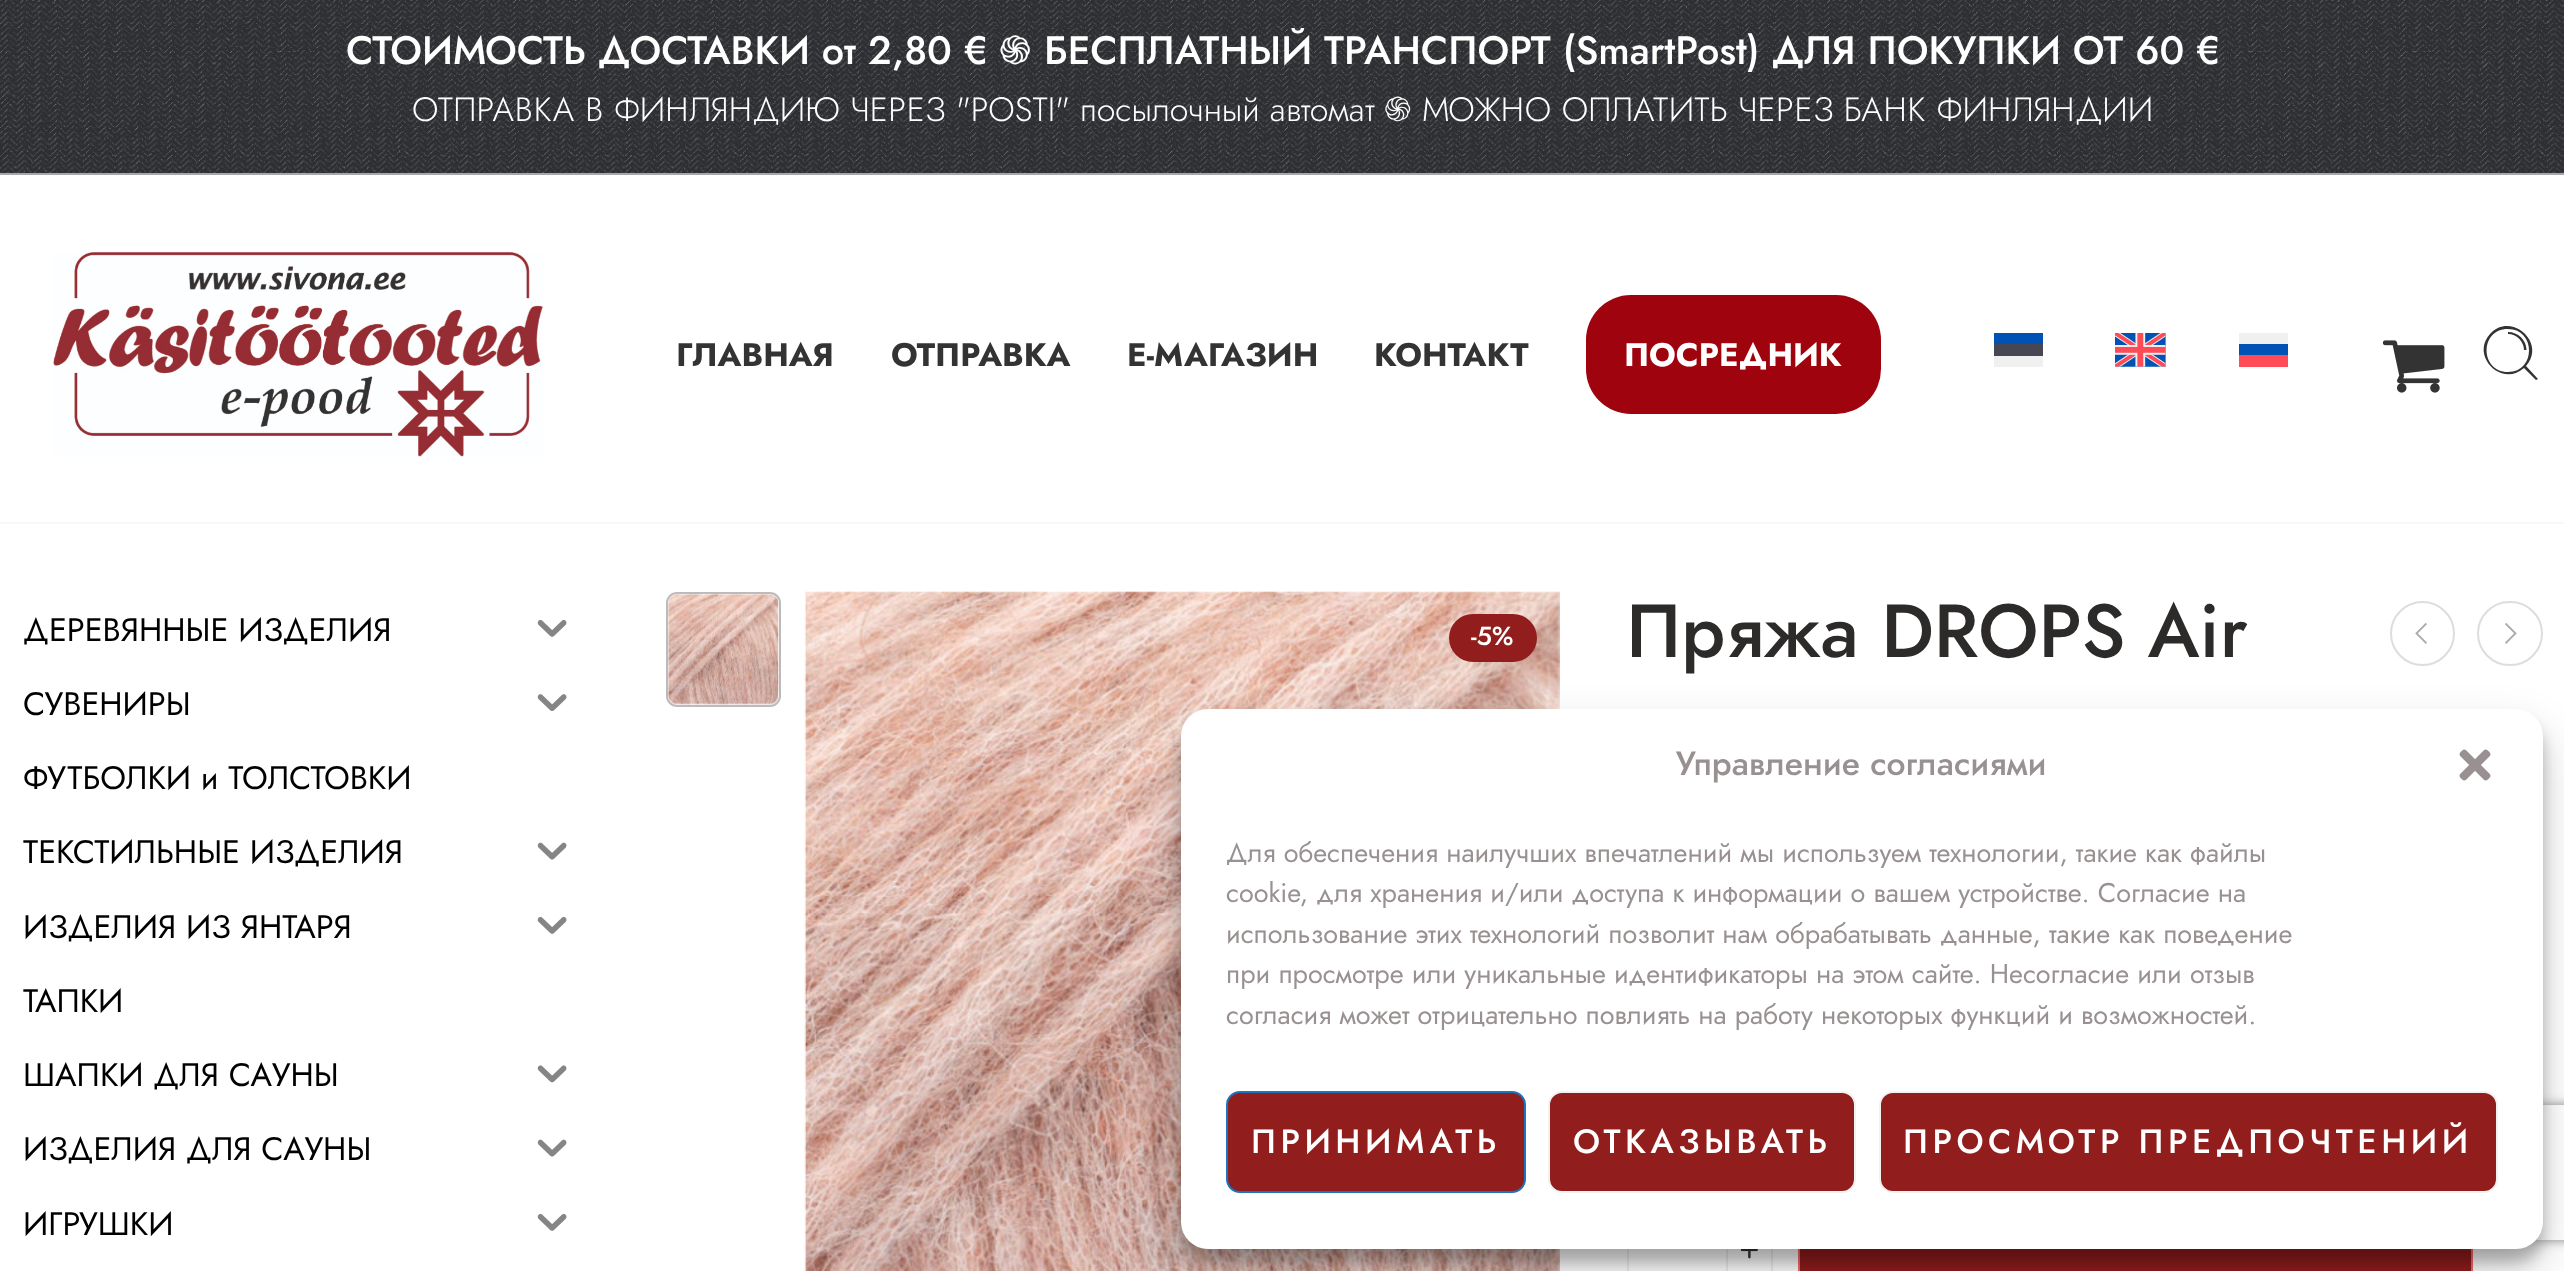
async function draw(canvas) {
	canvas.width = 2564;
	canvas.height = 1271;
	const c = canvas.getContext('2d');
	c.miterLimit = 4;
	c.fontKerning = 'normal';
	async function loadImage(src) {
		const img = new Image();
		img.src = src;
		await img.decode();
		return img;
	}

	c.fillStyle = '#fff';
	c.fillRect(0, 0, 2564, 1271);
	c.fillStyle = '#2e2f33';
	c.fillRect(0, 0, 2564, 173);
	c.drawImage(await loadImage('img1.png'), 0, 0, 2564, 173);
	c.font = '500 39.6px Jost';
	c.fillStyle = '#fff';
	c.fillText('СТОИМОСТЬ ДОСТАВКИ от 2,80 €', 346, 64);
	c.font = '500 39.6px Noto Sans Armenian';
	c.fillText('֍', 999, 64);
	c.font = '500 39.6px Jost';
	c.fillText('БЕСПЛАТНЫЙ ТРАНСПОРТ (SmartPost) ДЛЯ ПОКУПКИ ОТ 60 €', 1044, 64);
	c.font = '300 33.75px Jost';
	c.fillText('ОТПРАВКА В ФИНЛЯНДИЮ ЧЕРЕЗ "POSTI" посылочный автомат', 412, 121);
	c.font = '300 33.75px Noto Sans Armenian';
	c.fillText('֍', 1384, 121);
	c.font = '300 33.75px Jost';
	c.fillText('МОЖНО ОПЛАТИТЬ ЧЕРЕЗ БАНК ФИНЛЯНДИИ', 1422, 121);
	c.fillStyle = '#a7a7a7';
	c.fillRect(0, 173, 2564, 2);
	c.fillStyle = '#f8f8f8';
	c.fillRect(0, 522, 2564, 2);
	c.drawImage(await loadImage('img2.png'), 53, 252, 490, 205);
	c.font = 'bold 32.6px Jost';
	c.fillStyle = '#333';
	for (const [text, x, y] of [
		['ГЛАВНАЯ', 676, 366],
		['ОТПРАВКА', 891, 366],
		['Е-МАГАЗИН', 1127, 366],
		['КОНТАКТ', 1374, 366],
	]) {
		c.fillText(text, x, y);
	}
	c.fillStyle = '#9e030e';
	c.beginPath();
	c.roundRect(1586, 295, 295, 119, 45);
	c.fill();
	c.fillStyle = '#fff';
	c.fillText('ПОСРЕДНИК', 1624, 366);
	for (const [x, y, w, h, color] of [
		[1994, 344, 49, 12, '#464655'],
		[1994, 356, 49, 11, '#f0f0f0'],
		[1994, 333, 49, 11, '#0052b4'],
	]) {
		c.fillStyle = color;
		c.fillRect(x, y, w, h);
	}
	c.drawImage(await loadImage('img3.png'), 2115, 333, 51, 34);
	for (const [x, y, w, h, color] of [
		[2239, 344, 49, 11, '#0052b4'],
		[2239, 355, 49, 12, '#ff4b55'],
		[2239, 333, 49, 11, '#f0f0f0'],
	]) {
		c.fillStyle = color;
		c.fillRect(x, y, w, h);
	}
	c.drawImage(await loadImage('img4.png'), 2383, 340, 62, 53);
	c.fillStyle = '#333';
	c.beginPath();
	c.moveTo(2538, 379);
	c.lineTo(2526, 366);
	c.bezierCurveTo(2547, 343, 2511, 311, 2490, 334);
	c.bezierCurveTo(2470, 356, 2502, 388, 2524, 368);
	c.lineTo(2536, 380);
	c.closePath();
	c.moveTo(2508, 372);
	c.bezierCurveTo(2480, 372, 2479, 329, 2508, 329);
	c.bezierCurveTo(2536, 329, 2536, 372, 2508, 372);
	c.closePath();
	c.fill();
	c.beginPath();
	c.moveTo(2508, 332);
	c.lineTo(2508, 334);
	c.bezierCurveTo(2516.5, 334, 2524, 341.5, 2524, 350);
	c.lineTo(2526.5, 350);
	c.bezierCurveTo(2526.5, 340, 2518, 332, 2508, 332);
	c.closePath();
	c.fill();
	c.font = '32.6px Jost';
	c.fillStyle = '#000';
	c.fillText('ДЕРЕВЯННЫЕ ИЗДЕЛИЯ', 23, 641);
	c.drawImage(await loadImage('img5.png'), 537, 619, 30, 18);
	c.fillText('СУВЕНИРЫ', 23, 715);
	c.drawImage(await loadImage('img6.png'), 537, 694, 30, 17);
	c.fillText('ФУТБОЛКИ и ТОЛСТОВКИ', 23, 789);
	c.save();
	c.beginPath();
	c.rect(23, 815, 573, 74);
	c.clip();
	c.fillText('ТЕКСТИЛЬНЫЕ ИЗДЕЛИЯ', 23, 863);
	c.restore();
	c.drawImage(await loadImage('img7.png'), 537, 842, 30, 18);
	c.fillText('ИЗДЕЛИЯ ИЗ ЯНТАРЯ', 23, 938);
	c.drawImage(await loadImage('img5.png'), 537, 916, 30, 18);
	c.save();
	c.beginPath();
	c.rect(23, 963, 573, 74);
	c.clip();
	c.fillText('ТАПКИ', 23, 1012);
	c.restore();
	c.fillText('ШАПКИ ДЛЯ САУНЫ', 23, 1086);
	c.drawImage(await loadImage('img8.png'), 537, 1065, 30, 18);
	c.fillText('ИЗДЕЛИЯ ДЛЯ САУНЫ', 23, 1160);
	c.drawImage(await loadImage('img7.png'), 537, 1139, 30, 18);
	c.fillText('ИГРУШКИ', 23, 1235);
	c.drawImage(await loadImage('img5.png'), 537, 1213, 30, 18);
	c.beginPath();
	c.roundRect(667, 593, 113, 113, 10);
	c.strokeStyle = '#bbb';
	c.lineWidth = 2;
	c.stroke();
	c.drawImage(await loadImage('img9.png'), 668, 593, 111, 112);
	c.drawImage(await loadImage('img10.png'), 804, 591, 756, 680);
	c.fillStyle = '#911d1d';
	c.beginPath();
	c.roundRect(1449, 614, 88, 48, 24);
	c.fill();
	c.font = '500 26px Jost';
	c.fillStyle = '#fff';
	c.fillText('-5%', 1471, 645);
	c.font = '500 75px Jost';
	c.fillStyle = '#2d2a2a';
	c.fillText('Пряжа DROPS Air', 1626, 657);
	c.beginPath();
	c.arc(2422.5, 633.5, 31.5, 0, 2 * Math.PI);
	c.strokeStyle = '#ddd';
	c.stroke();
	c.drawImage(await loadImage('img11.png'), 2415, 623, 12, 21);
	c.beginPath();
	c.roundRect(2478, 602, 64, 63, 31.5);
	c.stroke();
	c.drawImage(await loadImage('img12.png'), 2505, 623, 12, 21);
	c.strokeStyle = '#efefef';
	c.strokeRect(1628, 1227, 99, 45);
	c.strokeRect(1727, 1227, 45, 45);
	c.drawImage(await loadImage('img13.png'), 1740, 1249, 18, 10);
	c.fillStyle = '#911d1d';
	c.fillRect(1800, 1249, 671, 22);
	c.strokeStyle = '#f76b6a';
	c.strokeRect(1799, 1227, 673, 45);
	c.fillStyle = '#0000003b';
	c.filter = 'blur(7px)';
	c.beginPath();
	c.roundRect(1181, 722, 1362, 540, 27);
	c.fill();
	c.filter = 'none';
	c.fillStyle = '#00000030';
	c.filter = 'blur(22.5px)';
	c.beginPath();
	c.roundRect(1181, 731, 1362, 540, 27);
	c.fill();
	c.filter = 'none';
	c.save();
	c.beginPath();
	c.moveTo(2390, 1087);
	c.lineTo(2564, 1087);
	c.lineTo(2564, 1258);
	c.lineTo(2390, 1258);
	c.closePath();
	c.moveTo(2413, 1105);
	c.lineTo(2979, 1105);
	c.bezierCurveTo(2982, 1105, 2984, 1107, 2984, 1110);
	c.lineTo(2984, 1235);
	c.bezierCurveTo(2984, 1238, 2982, 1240, 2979, 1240);
	c.lineTo(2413, 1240);
	c.bezierCurveTo(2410, 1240, 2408, 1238, 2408, 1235);
	c.lineTo(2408, 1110);
	c.bezierCurveTo(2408, 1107, 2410, 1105, 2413, 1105);
	c.closePath();
	c.clip('evenodd');
	c.fillStyle = '#808080';
	c.filter = 'blur(5.5px)';
	c.beginPath();
	c.roundRect(2408, 1105, 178, 135, 5);
	c.fill();
	c.filter = 'none';
	c.restore();
	c.fillStyle = '#fff';
	c.beginPath();
	c.roundRect(1181, 709, 1362, 540, 27);
	c.fill();
	c.font = '500 33.75px Jost';
	c.fillStyle = '#999191';
	c.fillText('Управление согласиями', 1676, 775);
	c.drawImage(await loadImage('img14.png'), 2459, 749, 32, 32);
	c.font = '27px Jost';
	for (const [text, x, y] of [
		['Для обеспечения наилучших впечатлений мы используем технологии, такие как файлы', 1226, 862],
		['cookie, для хранения и/или доступа к информации о вашем устройстве. Согласие на', 1226, 902],
		['использование этих технологий позволит нам обрабатывать данные, такие как поведение', 1226, 943],
		['при просмотре или уникальные идентификаторы на этом сайте. Несогласие или отзыв', 1226, 983],
		['согласия может отрицательно повлиять на работу некоторых функций и возможностей.', 1226, 1024],
	]) {
		c.fillText(text, x, y);
	}
	c.fillStyle = '#911d1d';
	c.beginPath();
	c.roundRect(1227, 1092, 298, 100, 13);
	c.fill();
	c.strokeStyle = '#1e73be';
	c.stroke();
	c.letterSpacing = '4.5px';
	c.font = '500 33.75px Jost';
	c.fillStyle = '#fff';
	c.fillText('ПРИНИМАТЬ', 1251, 1153);
	c.fillStyle = '#911d1d';
	c.beginPath();
	c.roundRect(1549, 1092, 306, 100, 13);
	c.fill();
	c.strokeStyle = '#f2f2f2';
	c.stroke();
	c.fillStyle = '#fff';
	c.fillText('ОТКАЗЫВАТЬ', 1573, 1153);
	c.fillStyle = '#911d1d';
	c.beginPath();
	c.roundRect(1880, 1092, 617, 100, 13);
	c.fill();
	c.stroke();
	c.fillStyle = '#fff';
	c.fillText('ПРОСМОТР ПРЕДПОЧТЕНИЙ', 1903, 1153);
}

draw(document.querySelector('canvas'));
